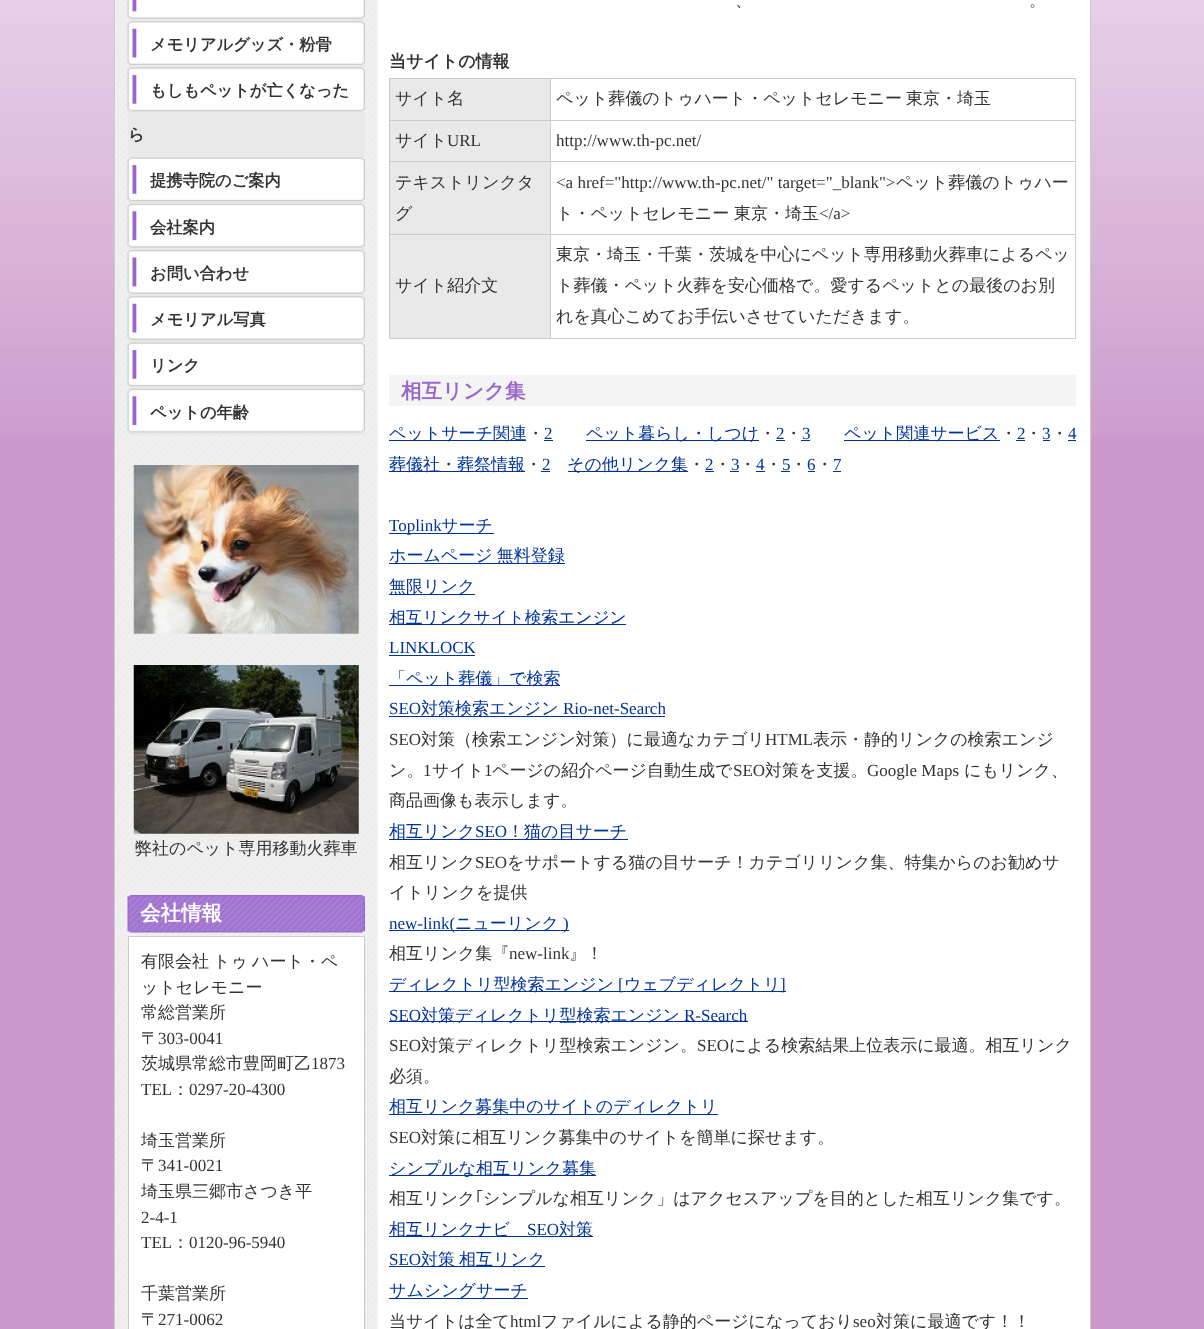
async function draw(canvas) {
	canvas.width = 1204;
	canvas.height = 1329;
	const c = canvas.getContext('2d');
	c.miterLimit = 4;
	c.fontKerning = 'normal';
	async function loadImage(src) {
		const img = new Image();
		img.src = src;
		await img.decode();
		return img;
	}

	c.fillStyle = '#c9c';
	c.fillRect(0, 0, 1204, 1329);
	c.drawImage(await loadImage('img1.png'), 0, 0, 1204, 435);
	c.fillStyle = '#fff';
	c.fillRect(377, 0, 713, 1329);
	c.fillStyle = '#ccc';
	c.beginPath();
	c.moveTo(1091, -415);
	c.lineTo(1091, 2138);
	c.lineTo(1090, 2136);
	c.lineTo(1090, -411);
	c.closePath();
	c.fill();
	c.beginPath();
	c.moveTo(114, 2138);
	c.lineTo(114, -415);
	c.lineTo(115, -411);
	c.lineTo(115, 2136);
	c.closePath();
	c.fill();
	c.drawImage(await loadImage('img2.png'), 115, 0, 263, 1329);
	c.fillStyle = '#e9e9e9';
	c.fillRect(128, 18, 237, 417);
	c.drawImage(await loadImage('img3.png'), 127, 0, 238, 19);
	c.drawImage(await loadImage('img4.png'), 127, 21, 238, 44);
	c.font = 'bold 16.25px WenQuanYi Zen Hei';
	c.fillStyle = '#333';
	c.fillText('メモリアルグッズ・粉骨', 150, 50);
	c.drawImage(await loadImage('img5.png'), 127, 67, 238, 45);
	c.fillText('もしもペットが亡くなった', 150, 96);
	c.fillText('ら', 128, 140);
	c.drawImage(await loadImage('img6.png'), 127, 157, 238, 45);
	c.fillText('提携寺院のご案内', 150, 186);
	c.drawImage(await loadImage('img7.png'), 127, 203, 238, 45);
	c.fillText('会社案内', 150, 233);
	c.drawImage(await loadImage('img8.png'), 127, 250, 238, 44);
	c.fillText('お問い合わせ', 150, 279);
	c.drawImage(await loadImage('img9.png'), 127, 296, 238, 44);
	c.fillText('メモリアル写真', 150, 325);
	c.drawImage(await loadImage('img5.png'), 127, 342, 238, 45);
	c.fillText('リンク', 150, 371);
	c.drawImage(await loadImage('img10.png'), 127, 388, 238, 45);
	c.fillText('ペットの年齢', 150, 418);
	c.drawImage(await loadImage('img11.png'), 133, 465, 226, 169);
	c.drawImage(await loadImage('img12.png'), 133, 665, 226, 169);
	c.font = '500 17px WenQuanYi Zen Hei';
	c.fillText('弊社のペット専用移動火葬車', 135, 854);
	c.drawImage(await loadImage('img13.png'), 127, 895, 238, 38);
	c.font = 'bold 20.5px WenQuanYi Zen Hei';
	c.fillStyle = '#fff';
	c.fillText('会社情報', 140, 920);
	c.beginPath();
	c.rect(128.5, 936.5, 236, 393);
	c.fill();
	c.strokeStyle = '#ccc';
	c.stroke();
	c.wordSpacing = '-1px';
	c.font = '500 17px WenQuanYi Zen Hei';
	c.fillStyle = '#333';
	c.fillText('有限会社 トゥ', 141, 967);
	c.wordSpacing = '0px';
	for (const [text, x, y] of [
		['ハート・ペ', 252, 967],
		['ットセレモニー', 141, 993],
		['常総営業所', 141, 1018],
		['〒', 141, 1044],
	]) {
		c.fillText(text, x, y);
	}
	c.font = '17px Liberation Serif';
	c.fillText('303-0041', 158, 1044);
	c.font = '500 17px WenQuanYi Zen Hei';
	c.fillText('茨城県常総市豊岡町乙', 141, 1069);
	c.font = '17px Liberation Serif';
	c.fillText('1873', 311, 1069);
	c.fillText('TEL', 141, 1095);
	c.font = '500 17px WenQuanYi Zen Hei';
	c.fillText('：', 172, 1095);
	c.font = '17px Liberation Serif';
	c.fillText('0297-20-4300', 189, 1095);
	c.font = '500 17px WenQuanYi Zen Hei';
	c.fillText('埼玉営業所', 141, 1146);
	c.fillText('〒', 141, 1171);
	c.font = '17px Liberation Serif';
	c.fillText('341-0021', 158, 1171);
	c.font = '500 17px WenQuanYi Zen Hei';
	c.fillText('埼玉県三郷市さつき平', 141, 1197);
	c.font = '17px Liberation Serif';
	c.fillText('2-4-1', 141, 1223);
	c.fillText('TEL', 141, 1248);
	c.font = '500 17px WenQuanYi Zen Hei';
	c.fillText('：', 172, 1248);
	c.font = '17px Liberation Serif';
	c.fillText('0120-96-5940', 189, 1248);
	c.font = '500 17px WenQuanYi Zen Hei';
	c.fillText('千葉営業所', 141, 1299);
	c.fillText('〒', 141, 1325);
	c.font = '17px Liberation Serif';
	c.fillText('271-0062', 158, 1325);
	c.font = '500 17px WenQuanYi Zen Hei';
	c.fillText('、', 735, 6);
	c.fillText('。', 1029, 6);
	c.font = 'bold 17px WenQuanYi Zen Hei';
	c.fillText('当サイトの情報', 389, 67);
	for (const [x, y, w, h, color] of [
		[389, 78, 687, 1, '#ccc'],
		[1075, 78, 1, 261, '#ccc'],
		[389, 338, 687, 1, '#ccc'],
		[389, 78, 1, 261, '#ccc'],
		[390, 79, 160, 41, '#e9e9e9'],
	]) {
		c.fillStyle = color;
		c.fillRect(x, y, w, h);
	}
	c.font = '500 17px WenQuanYi Zen Hei';
	c.fillStyle = '#333';
	c.fillText('サイト名', 395, 104);
	for (const [x, y, w, h, color] of [
		[550, 120, 526, 1, '#ccc'],
		[390, 121, 160, 113, '#e9e9e9'],
		[550, 161, 526, 1, '#ccc'],
		[550, 234, 526, 1, '#ccc'],
		[550, 234, 1, 105, '#ccc'],
		[389, 234, 162, 1, '#ccc'],
		[550, 161, 1, 74, '#ccc'],
		[389, 161, 162, 1, '#ccc'],
		[550, 120, 1, 43, '#ccc'],
		[389, 120, 162, 1, '#ccc'],
		[550, 78, 1, 43, '#ccc'],
	]) {
		c.fillStyle = color;
		c.fillRect(x, y, w, h);
	}
	c.wordSpacing = '-1px';
	c.fillStyle = '#333';
	c.fillText('ペット葬儀のトゥハート・ペットセレモニー 東京・埼玉', 556, 104);
	c.wordSpacing = '0px';
	c.fillText('サイト', 395, 146);
	c.font = '17px Liberation Serif';
	c.fillText('URL', 447, 146);
	c.fillText('http://www.th-pc.net/', 556, 146);
	c.font = '500 17px WenQuanYi Zen Hei';
	c.fillText('テキストリンクタ', 395, 188);
	c.fillText('グ', 395, 219);
	c.font = '17px Liberation Serif';
	c.fillText('<a href="http://www.th-pc.net/" target="_blank">', 556, 188);
	c.font = '500 17px WenQuanYi Zen Hei';
	for (const [text, x, y] of [
		['ペット葬儀のトゥハー', 896, 188],
		['ト・ペットセレモニー', 556, 219],
		['東京・埼玉', 734, 219],
	]) {
		c.fillText(text, x, y);
	}
	c.font = '17px Liberation Serif';
	c.fillText('<\/a>', 819, 219);
	c.fillStyle = '#e9e9e9';
	c.fillRect(390, 235, 160, 103);
	c.font = '500 17px WenQuanYi Zen Hei';
	c.fillStyle = '#333';
	for (const [text, x, y] of [
		['サイト紹介文', 395, 291],
		['東京・埼玉・千葉・茨城を中心にペット専用移動火葬車によるペッ', 556, 260],
		['ト葬儀・ペット火葬を安心価格で。愛するペットとの最後のお別', 556, 291],
		['れを真心こめてお手伝いさせていただきます。', 556, 322],
	]) {
		c.fillText(text, x, y);
	}
	c.fillStyle = '#f4f4f4';
	c.fillRect(389, 375, 687, 31);
	c.font = 'bold 20.5px WenQuanYi Zen Hei';
	c.fillStyle = '#96c';
	c.fillText('相互リンク集', 401, 398);
	c.fillStyle = '#039';
	c.fillRect(389, 440, 137, 1);
	c.font = '500 17px WenQuanYi Zen Hei';
	c.fillText('ペットサーチ関連', 389, 439);
	c.fillStyle = '#333';
	c.fillText('・', 527, 439);
	c.font = '17px Liberation Serif';
	c.fillStyle = '#039';
	c.fillText('2', 544, 439);
	c.fillRect(544, 440, 9, 1);
	c.fillRect(586, 440, 173, 1);
	c.font = '500 17px WenQuanYi Zen Hei';
	c.fillText('ペット暮らし・しつけ', 586, 439);
	c.fillStyle = '#333';
	c.fillText('・', 759, 439);
	c.font = '17px Liberation Serif';
	c.fillStyle = '#039';
	c.fillText('2', 776, 439);
	c.fillRect(776, 440, 9, 1);
	c.font = '500 17px WenQuanYi Zen Hei';
	c.fillStyle = '#333';
	c.fillText('・', 785, 439);
	c.font = '17px Liberation Serif';
	c.fillStyle = '#039';
	c.fillText('3', 802, 439);
	c.fillRect(801, 440, 9, 1);
	c.fillRect(844, 440, 156, 1);
	c.font = '500 17px WenQuanYi Zen Hei';
	c.fillText('ペット関連サービス', 844, 439);
	c.fillStyle = '#333';
	c.fillText('・', 1000, 439);
	c.font = '17px Liberation Serif';
	c.fillStyle = '#039';
	c.fillText('2', 1017, 439);
	c.fillRect(1016, 440, 9, 1);
	c.font = '500 17px WenQuanYi Zen Hei';
	c.fillStyle = '#333';
	c.fillText('・', 1025, 439);
	c.font = '17px Liberation Serif';
	c.fillStyle = '#039';
	c.fillText('3', 1042, 439);
	c.fillRect(1043, 440, 7, 1);
	c.font = '500 17px WenQuanYi Zen Hei';
	c.fillStyle = '#333';
	c.fillText('・', 1051, 439);
	c.font = '17px Liberation Serif';
	c.fillStyle = '#039';
	c.fillText('4', 1068, 439);
	c.fillRect(1068, 440, 8, 1);
	c.fillRect(389, 471, 136, 1);
	c.font = '500 17px WenQuanYi Zen Hei';
	c.fillText('葬儀社・葬祭情報', 389, 470);
	c.fillStyle = '#333';
	c.fillText('・', 525, 470);
	c.font = '17px Liberation Serif';
	c.fillStyle = '#039';
	c.fillText('2', 542, 470);
	c.fillRect(541, 471, 9, 1);
	c.fillRect(568, 471, 120, 1);
	c.font = '500 17px WenQuanYi Zen Hei';
	c.fillText('その他リンク集', 567, 470);
	c.fillStyle = '#333';
	c.fillText('・', 688, 470);
	c.font = '17px Liberation Serif';
	c.fillStyle = '#039';
	c.fillText('2', 705, 470);
	c.fillRect(705, 471, 9, 1);
	c.font = '500 17px WenQuanYi Zen Hei';
	c.fillStyle = '#333';
	c.fillText('・', 714, 470);
	c.font = '17px Liberation Serif';
	c.fillStyle = '#039';
	c.fillText('3', 731, 470);
	c.fillRect(730, 471, 9, 1);
	c.font = '500 17px WenQuanYi Zen Hei';
	c.fillStyle = '#333';
	c.fillText('・', 739, 470);
	c.font = '17px Liberation Serif';
	c.fillStyle = '#039';
	c.fillText('4', 756, 470);
	c.fillRect(756, 471, 9, 1);
	c.font = '500 17px WenQuanYi Zen Hei';
	c.fillStyle = '#333';
	c.fillText('・', 765, 470);
	c.font = '17px Liberation Serif';
	c.fillStyle = '#039';
	c.fillText('5', 782, 470);
	c.fillRect(781, 471, 9, 1);
	c.font = '500 17px WenQuanYi Zen Hei';
	c.fillStyle = '#333';
	c.fillText('・', 790, 470);
	c.font = '17px Liberation Serif';
	c.fillStyle = '#039';
	c.fillText('6', 807, 470);
	c.fillRect(808, 471, 7, 1);
	c.font = '500 17px WenQuanYi Zen Hei';
	c.fillStyle = '#333';
	c.fillText('・', 816, 470);
	c.font = '17px Liberation Serif';
	c.fillStyle = '#039';
	c.fillText('7', 833, 470);
	c.fillRect(833, 471, 8, 1);
	c.fillRect(389, 533, 105, 1);
	c.fillText('Toplink', 389, 531);
	c.font = '500 17px WenQuanYi Zen Hei';
	c.fillText('サーチ', 441, 531);
	c.fillRect(389, 563, 176, 1);
	c.wordSpacing = '-1px';
	c.fillText('ホームページ 無料登録', 389, 561);
	c.fillRect(389, 594, 86, 1);
	c.wordSpacing = '0px';
	c.fillText('無限リンク', 389, 592);
	c.fillRect(389, 624, 237, 1);
	c.font = '500 16.7px WenQuanYi Zen Hei';
	c.fillText('相互リンクサイト検索エンジン', 389, 623);
	c.font = '17px Liberation Serif';
	c.fillText('LINKLOCK', 389, 653);
	c.fillRect(389, 655, 86, 1);
	c.fillRect(389, 685, 171, 1);
	c.font = '500 17px WenQuanYi Zen Hei';
	c.fillText('「ペット葬儀」で検索', 389, 684);
	c.font = '17px Liberation Serif';
	c.fillText('SEO', 389, 714);
	c.fillRect(389, 716, 276, 1);
	c.font = '500 17px WenQuanYi Zen Hei';
	c.fillText('対策検索エンジン', 421, 714);
	c.font = '17px Liberation Serif';
	c.fillText('Rio-net-Search', 563, 714);
	c.fillStyle = '#333';
	c.fillText('SEO', 389, 745);
	c.font = '500 17px WenQuanYi Zen Hei';
	c.fillText('対策（検索エンジン対策）に最適なカテゴリ', 421, 745);
	c.font = '17px Liberation Serif';
	c.fillText('HTML', 765, 745);
	c.font = '500 17px WenQuanYi Zen Hei';
	c.fillText('表示・静的リンクの検索エンジ', 813, 745);
	c.fillText('ン。', 389, 776);
	c.font = '17px Liberation Serif';
	c.fillText('1', 423, 776);
	c.font = '500 17px WenQuanYi Zen Hei';
	c.fillText('サイト', 432, 776);
	c.font = '17px Liberation Serif';
	c.fillText('1', 484, 776);
	c.font = '500 17px WenQuanYi Zen Hei';
	c.fillText('ページの紹介ページ自動生成で', 492, 776);
	c.font = '17px Liberation Serif';
	c.fillText('SEO', 733, 776);
	c.font = '500 17px WenQuanYi Zen Hei';
	c.fillText('対策を支援。', 765, 776);
	c.font = '17px Liberation Serif';
	c.fillText('Google Maps', 867, 776);
	c.font = '500 17px WenQuanYi Zen Hei';
	c.fillText('にもリンク、', 964, 776);
	c.fillText('商品画像も表示します。', 389, 806);
	c.fillStyle = '#039';
	c.fillRect(389, 839, 239, 1);
	c.fillText('相互リンク', 389, 837);
	c.font = '17px Liberation Serif';
	c.fillText('SEO', 475, 837);
	c.font = '500 17px WenQuanYi Zen Hei';
	c.fillText('！猫の目サーチ', 507, 837);
	c.fillStyle = '#333';
	c.fillText('相互リンク', 389, 868);
	c.font = '17px Liberation Serif';
	c.fillText('SEO', 475, 868);
	c.font = '500 17px WenQuanYi Zen Hei';
	c.fillText('をサポートする猫の目サーチ！カテゴリリンク集、特集からのお勧めサ', 507, 868);
	c.fillText('イトリンクを提供', 389, 898);
	c.fillStyle = '#039';
	c.fillRect(389, 930, 180, 1);
	c.font = '17px Liberation Serif';
	c.fillText('new-link(', 389, 929);
	c.font = '500 17px WenQuanYi Zen Hei';
	c.fillText('ニューリンク', 455, 929);
	c.font = '17px Liberation Serif';
	c.fillText(')', 563, 929);
	c.font = '500 17px WenQuanYi Zen Hei';
	c.fillStyle = '#333';
	c.fillText('相互リンク集『', 389, 959);
	c.font = '17px Liberation Serif';
	c.fillText('new-link', 509, 959);
	c.font = '500 17px WenQuanYi Zen Hei';
	c.fillText('』！', 569, 959);
	c.fillStyle = '#039';
	c.fillRect(389, 991, 397, 1);
	c.fillText('ディレクトリ型検索エンジン', 389, 990);
	c.font = '17px Liberation Serif';
	c.fillText('[', 618, 990);
	c.font = '500 17px WenQuanYi Zen Hei';
	c.fillText('ウェブディレクトリ', 624, 990);
	c.font = '17px Liberation Serif';
	c.fillText(']', 780, 990);
	c.fillRect(389, 1021, 359, 1);
	c.fillText('SEO', 389, 1021);
	c.font = '500 17px WenQuanYi Zen Hei';
	c.fillText('対策ディレクトリ型検索エンジン', 421, 1021);
	c.font = '17px Liberation Serif';
	c.fillText('R-Search', 684, 1021);
	c.fillStyle = '#333';
	c.fillText('SEO', 389, 1051);
	c.font = '500 17px WenQuanYi Zen Hei';
	c.fillText('対策ディレクトリ型検索エンジン。', 421, 1051);
	c.font = '17px Liberation Serif';
	c.fillText('SEO', 697, 1051);
	c.font = '500 17px WenQuanYi Zen Hei';
	c.fillText('による検索結果上位表示に最適。相互リンク', 729, 1051);
	c.fillText('必須。', 389, 1082);
	c.fillStyle = '#039';
	c.fillRect(389, 1114, 329, 1);
	c.fillText('相互リンク募集中のサイトのディレクトリ', 389, 1112);
	c.font = '17px Liberation Serif';
	c.fillStyle = '#333';
	c.fillText('SEO', 389, 1143);
	c.font = '500 17px WenQuanYi Zen Hei';
	c.fillText('対策に相互リンク募集中のサイトを簡単に探せます。', 421, 1143);
	c.fillStyle = '#039';
	c.fillRect(389, 1175, 207, 1);
	c.fillText('シンプルな相互リンク募集', 389, 1174);
	c.fillStyle = '#333';
	c.fillText('相互リンク', 389, 1204);
	c.font = '17px IPAPGothic';
	c.fillText('｢', 475, 1204);
	c.font = '500 17px WenQuanYi Zen Hei';
	c.fillText('シンプルな相互リンク」はアクセスアップを目的とした相互リンク集です。', 483, 1204);
	c.fillStyle = '#039';
	c.fillRect(389, 1236, 204, 1);
	c.fillText('相互リンクナビ', 389, 1235);
	c.font = '17px Liberation Serif';
	c.fillText('SEO', 527, 1235);
	c.font = '500 17px WenQuanYi Zen Hei';
	c.fillText('対策', 559, 1235);
	c.font = '17px Liberation Serif';
	c.fillText('SEO', 389, 1265);
	c.fillRect(389, 1266, 156, 1);
	c.wordSpacing = '-1px';
	c.font = '500 17px WenQuanYi Zen Hei';
	c.fillText('対策 相互リンク', 421, 1265);
	c.fillRect(389, 1298, 139, 1);
	c.wordSpacing = '0px';
	c.fillText('サムシングサーチ', 389, 1296);
	c.fillStyle = '#333';
	c.fillText('当サイトは全て', 389, 1327);
	c.font = '17px Liberation Serif';
	c.fillText('html', 510, 1327);
	c.font = '500 17px WenQuanYi Zen Hei';
	c.fillText('ファイルによる静的ページになっており', 541, 1327);
	c.font = '17px Liberation Serif';
	c.fillText('seo', 853, 1327);
	c.font = '500 17px WenQuanYi Zen Hei';
	c.fillText('対策に最適です！！', 876, 1327);
}

draw(document.querySelector('canvas'));
